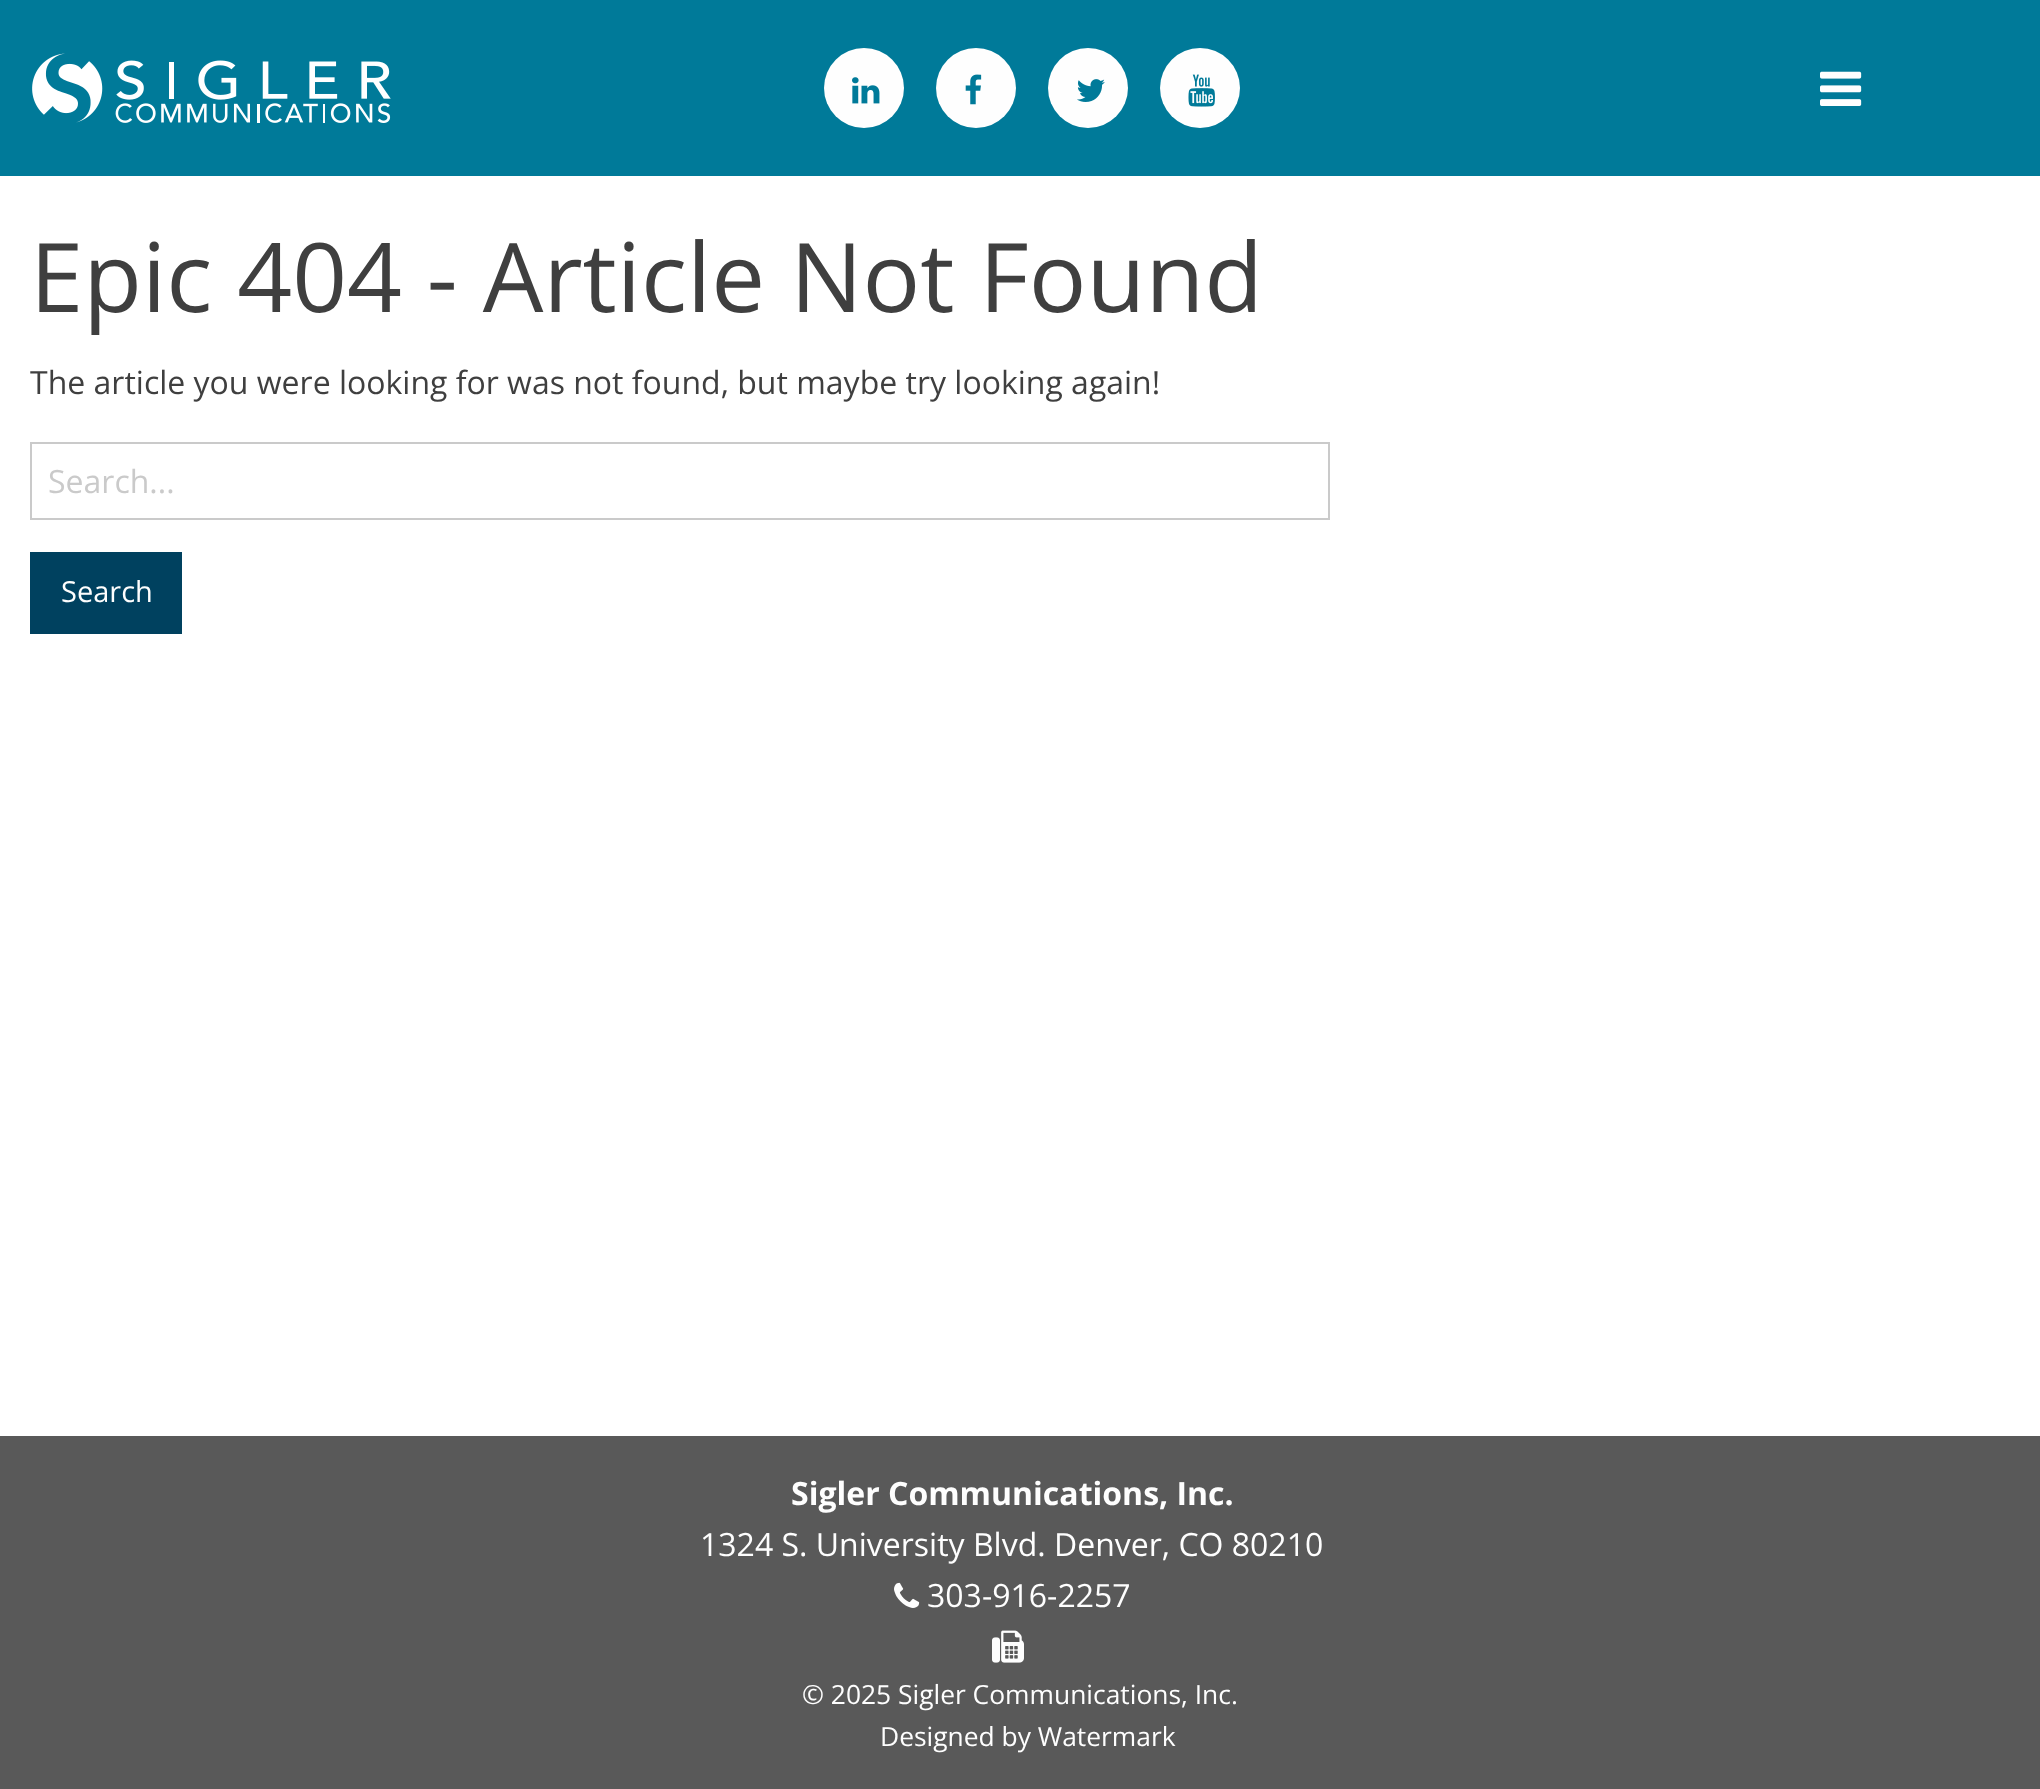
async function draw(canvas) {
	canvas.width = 2040;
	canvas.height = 1789;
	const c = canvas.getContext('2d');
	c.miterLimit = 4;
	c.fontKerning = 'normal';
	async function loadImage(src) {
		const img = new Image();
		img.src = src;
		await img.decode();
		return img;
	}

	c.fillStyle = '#fff';
	c.fillRect(0, 0, 2040, 1789);
	c.fillStyle = '#007a99';
	c.fillRect(0, 0, 2040, 176);
	c.drawImage(await loadImage('img1.png'), 32, 53, 359, 70);
	c.fillStyle = '#fefefe';
	c.beginPath();
	c.arc(864, 88, 40, 0, 2 * Math.PI);
	c.fill();
	c.drawImage(await loadImage('img2.png'), 852, 77, 28, 27);
	c.beginPath();
	c.arc(976, 88, 40, 0, 2 * Math.PI);
	c.fill();
	c.drawImage(await loadImage('img3.png'), 965, 74, 17, 31);
	c.beginPath();
	c.arc(1088, 88, 40, 0, 2 * Math.PI);
	c.fill();
	c.drawImage(await loadImage('img4.png'), 1077, 79, 28, 23);
	c.beginPath();
	c.arc(1200, 88, 40, 0, 2 * Math.PI);
	c.fill();
	c.drawImage(await loadImage('img5.png'), 1188, 74, 27, 33);
	c.drawImage(await loadImage('img6.png'), 1820, 71, 42, 35);
	c.font = '96px Open Sans';
	c.fillStyle = '#3f3f3f';
	c.fillText('Epic 404 - Article Not Found', 30, 312);
	c.font = '32px Open Sans';
	c.fillText('The article you were looking for was not found, but maybe try looking again!', 30, 394);
	c.strokeStyle = '#cacaca';
	c.lineWidth = 2;
	c.strokeRect(31, 443, 1298, 76);
	c.fillStyle = '#cacaca';
	c.fillText('Search...', 48, 493);
	c.fillStyle = '#00415f';
	c.fillRect(30, 552, 152, 82);
	c.font = '29px Open Sans';
	c.fillStyle = '#fefefe';
	c.fillText('Search', 61, 602);
	c.fillStyle = '#595959';
	c.fillRect(0, 1436, 2040, 353);
	c.font = 'bold 32px Open Sans';
	c.fillStyle = '#fefefe';
	c.fillText('Sigler Communications, Inc.', 791, 1505);
	c.font = '32px Open Sans';
	c.fillText('1324 S. University Blvd. Denver, CO 80210', 700, 1556);
	c.drawImage(await loadImage('img7.png'), 894, 1582, 26, 26);
	c.fillText('303-916-2257', 927, 1607);
	c.drawImage(await loadImage('img8.png'), 992, 1630, 32, 33);
	c.font = '26.4px Open Sans';
	c.fillText('© 2025 Sigler Communications, Inc.', 802, 1704);
	c.fillText('Designed by Watermark', 880, 1746);
}

draw(document.querySelector('canvas'));
